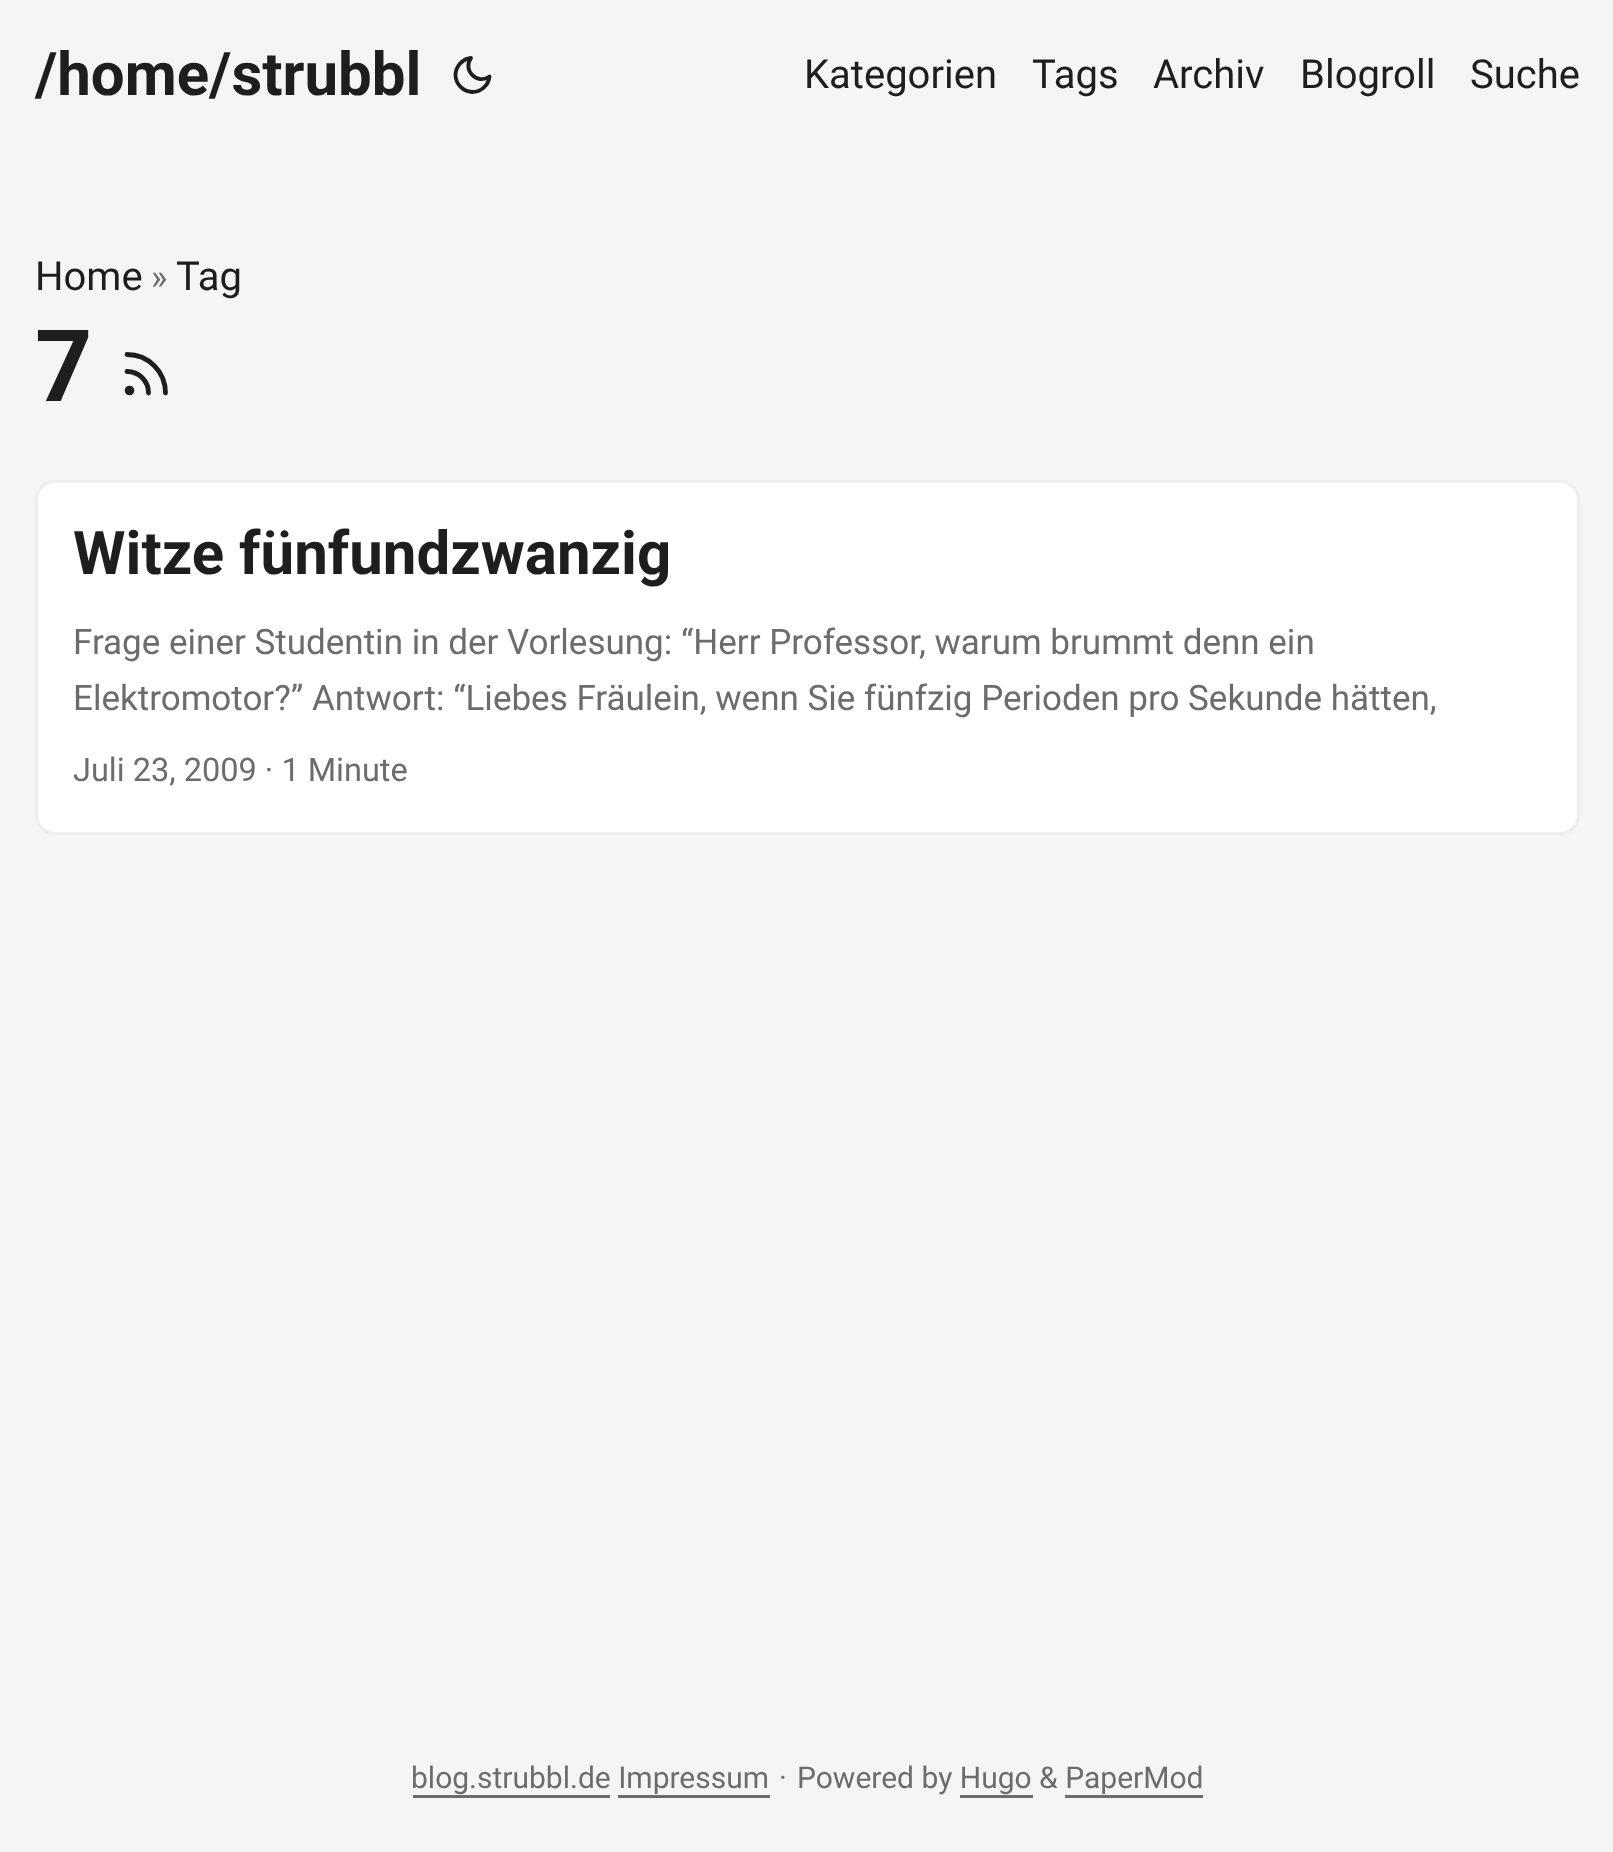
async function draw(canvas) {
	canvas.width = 1613;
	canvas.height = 1852;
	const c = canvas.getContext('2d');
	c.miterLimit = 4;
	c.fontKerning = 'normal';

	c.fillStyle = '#f5f5f5';
	c.fillRect(0, 0, 1613, 1852);
	c.font = 'bold 60px Roboto';
	c.fillStyle = '#1e1e1e';
	c.fillText('/home/strubbl', 35, 95);
	c.beginPath();
	c.moveTo(489.5, 76.5);
	c.bezierCurveTo(488.5, 85.5, 481, 92, 472, 92);
	c.bezierCurveTo(463, 91.5, 456, 84.5, 455.5, 75.5);
	c.bezierCurveTo(455.5, 66.5, 462, 59, 471, 58);
	c.bezierCurveTo(462, 70, 477.5, 85.5, 489.5, 76.5);
	c.closePath();
	c.strokeStyle = '#1e1e1e';
	c.lineWidth = 3.8;
	c.lineCap = 'round';
	c.lineJoin = 'round';
	c.stroke();
	c.font = '40px Roboto';
	for (const [text, x, y] of [
		['Kategorien', 804, 88],
		['Tags', 1032, 88],
		['Archiv', 1153, 88],
		['Blogroll', 1300, 88],
		['Suche', 1470, 88],
		['Home', 35, 290],
	]) {
		c.fillText(text, x, y);
	}
	c.font = '35px Roboto';
	c.fillStyle = '#6c6c6c';
	c.fillText('»', 151, 289);
	c.font = '40px Roboto';
	c.fillStyle = '#1e1e1e';
	c.fillText('Tag', 176, 290);
	c.font = 'bold 100px Roboto';
	c.fillText('7', 35, 401);
	c.beginPath();
	c.moveTo(127, 371.5);
	c.bezierCurveTo(139, 371.5, 148.5, 381, 148.5, 393);
	c.moveTo(127, 354.5);
	c.bezierCurveTo(148.5, 354.5, 165.5, 371.5, 165.5, 393);
	c.lineWidth = 4.8;
	c.stroke();
	c.beginPath();
	c.arc(129.5, 390.5, 2.4, 0, 2 * Math.PI);
	c.stroke();
	c.fillStyle = '#fff';
	c.beginPath();
	c.roundRect(36.5, 481.5, 1542, 352, 18.5);
	c.fill();
	c.strokeStyle = '#eee';
	c.lineWidth = 3;
	c.lineJoin = 'miter';
	c.stroke();
	c.font = 'bold 60px Roboto';
	c.fillStyle = '#1e1e1e';
	c.fillText('Witze fünfundzwanzig', 73, 574);
	c.font = '35px Roboto';
	c.fillStyle = '#6c6c6c';
	c.fillText('Frage einer Studentin in der Vorlesung: “Herr Professor, warum brummt denn ein', 73, 654);
	c.fillText('Elektromotor?” Antwort: “Liebes Fräulein, wenn Sie fünfzig Perioden pro Sekunde hätten,', 73, 710);
	c.font = '32.5px Roboto';
	c.fillText('Juli 23, 2009 · 1 Minute', 73, 781);
	c.font = '30px Roboto';
	c.fillText('blog.strubbl.de Impressum', 411, 1788);
	c.fillRect(413, 1795, 197, 3);
	c.fillRect(618, 1795, 152, 3);
	c.fillText('·', 779, 1788);
	c.fillText('Powered by Hugo & PaperMod', 797, 1788);
	c.fillRect(960, 1795, 73, 3);
	c.fillRect(1065, 1795, 138, 3);
}

draw(document.querySelector('canvas'));
